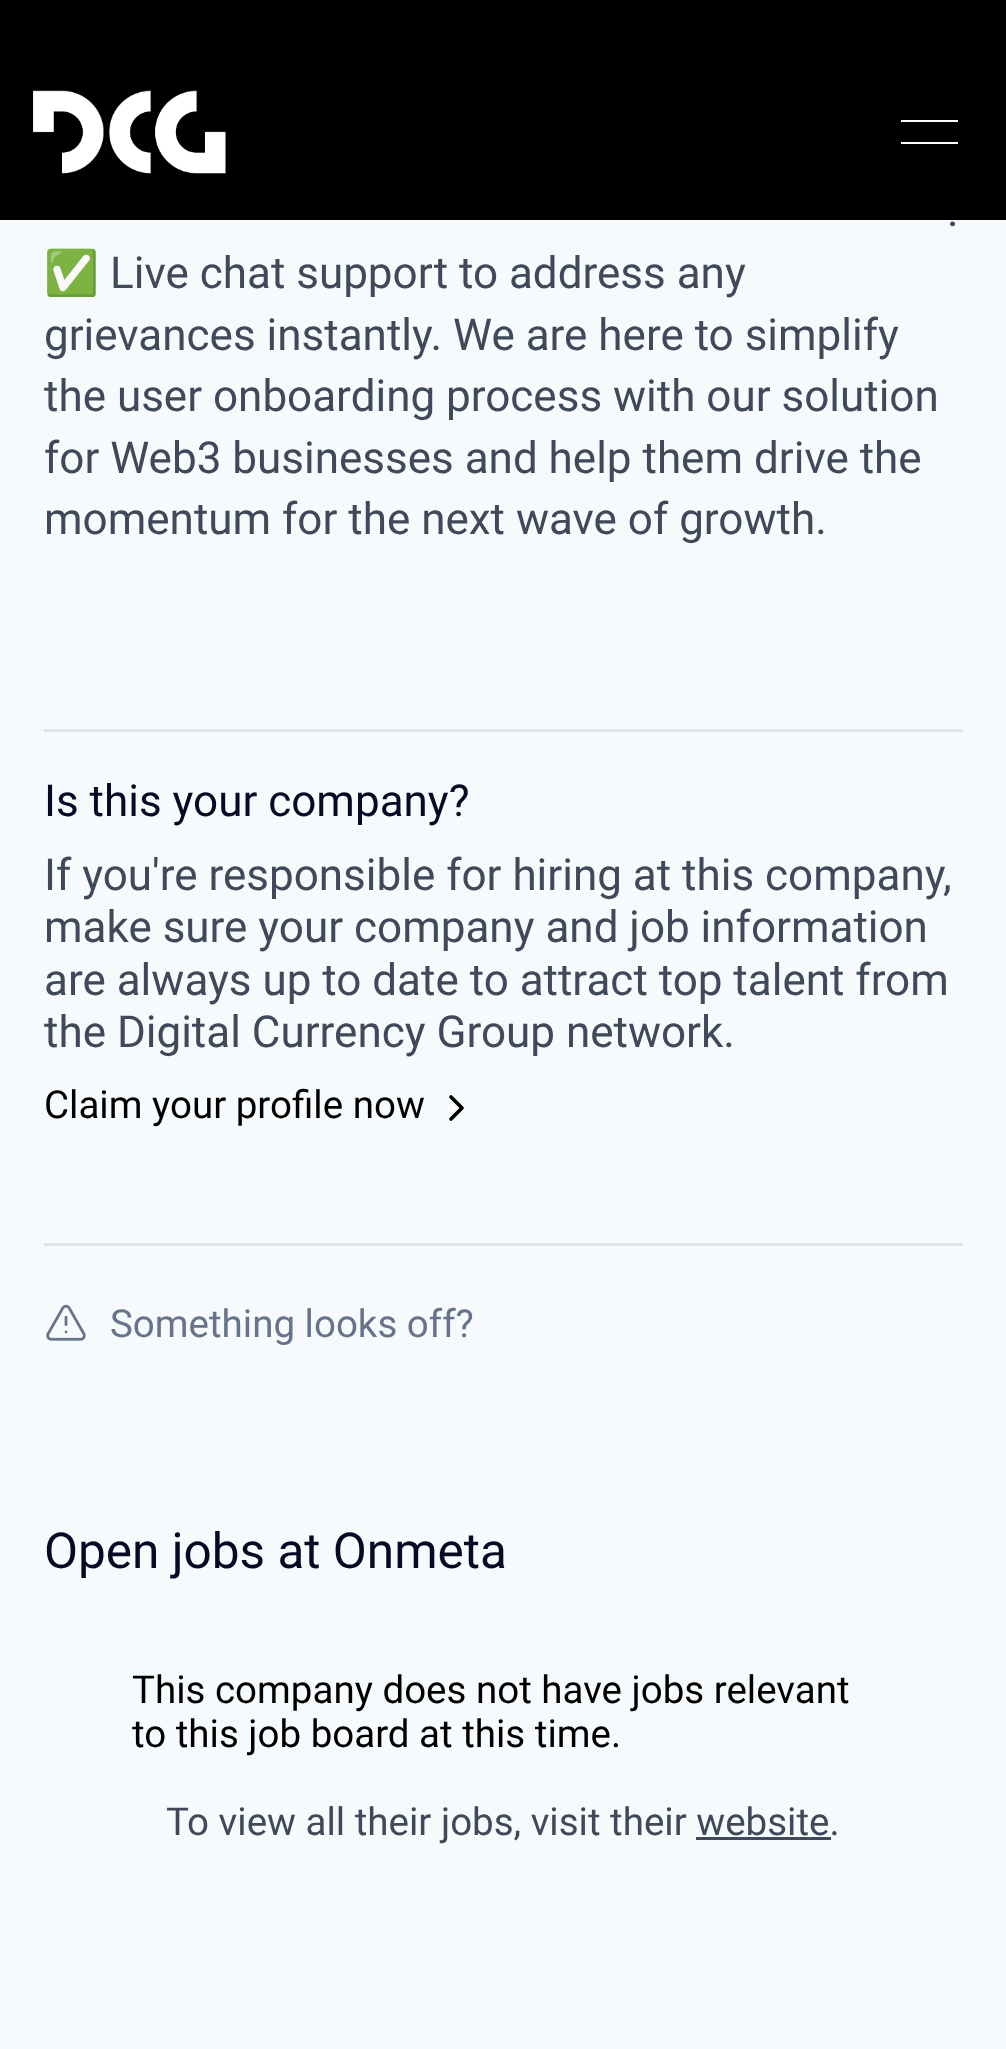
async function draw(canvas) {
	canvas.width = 1006;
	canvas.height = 2049;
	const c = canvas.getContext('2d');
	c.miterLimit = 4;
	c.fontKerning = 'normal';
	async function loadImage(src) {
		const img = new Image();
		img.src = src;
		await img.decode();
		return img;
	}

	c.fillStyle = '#f7fafc';
	c.fillRect(0, 0, 1006, 2049);
	c.fillStyle = '#000';
	c.fillRect(0, 0, 1006, 220);
	c.drawImage(await loadImage('img1.png'), 33, 90, 193, 84);
	c.fillStyle = '#fff';
	c.fillRect(901, 120, 57, 2);
	c.fillRect(901, 142, 57, 2);
	c.font = '44px Roboto';
	c.fillStyle = '#3f495a';
	c.fillText('.', 947, 226);
	c.font = '44px Noto Color Emoji';
	c.fillText('✅', 44, 288);
	c.font = '44px Roboto';
	for (const [text, x, y] of [
		['Live chat support to address any', 110, 288],
		['grievances instantly. We are here to simplify', 44, 350],
		['the user onboarding process with our solution', 44, 411],
		['for Web3 businesses and help them drive the', 44, 473],
		['momentum for the next wave of growth.', 44, 534],
	]) {
		c.fillText(text, x, y);
	}
	c.fillStyle = '#dee4ed';
	c.fillRect(44, 729, 919, 3);
	c.fillStyle = '#090925';
	c.fillText('Is this your company?', 44, 816);
	c.fillStyle = '#3f495a';
	for (const [text, x, y] of [
		['If you\'re responsible for hiring at this company', 44, 890],
		[',', 943, 890],
		['make sure your company and job information', 44, 942],
		['are always up to date to attract top talent from', 44, 995],
		['the Digital Currency Group network.', 44, 1047],
	]) {
		c.fillText(text, x, y);
	}
	c.font = '38.5px Roboto';
	c.fillStyle = '#000';
	c.fillText('Claim your profile now', 44, 1118);
	c.beginPath();
	c.moveTo(451, 1119);
	c.lineTo(462, 1108);
	c.lineTo(451, 1097);
	c.strokeStyle = '#000';
	c.lineWidth = 3.7;
	c.lineCap = 'round';
	c.lineJoin = 'round';
	c.stroke();
	c.fillStyle = '#dee4ed';
	c.fillRect(44, 1243, 919, 3);
	c.drawImage(await loadImage('img2.png'), 46, 1304, 40, 37);
	c.fillStyle = '#67738b';
	c.fillText('Something looks off?', 110, 1337);
	c.font = '49.5px Roboto';
	c.fillStyle = '#090925';
	c.fillText('Open jobs at Onmeta', 44, 1568);
	c.font = '38.5px Roboto';
	c.fillStyle = '#000';
	c.fillText('This company does not have jobs relevant', 132, 1703);
	c.fillText('to this job board at this time.', 132, 1747);
	c.fillStyle = '#3f495a';
	c.fillText('To view all their jobs, visit their website.', 166, 1835);
	c.fillRect(696, 1837, 135, 3);
}

draw(document.querySelector('canvas'));
